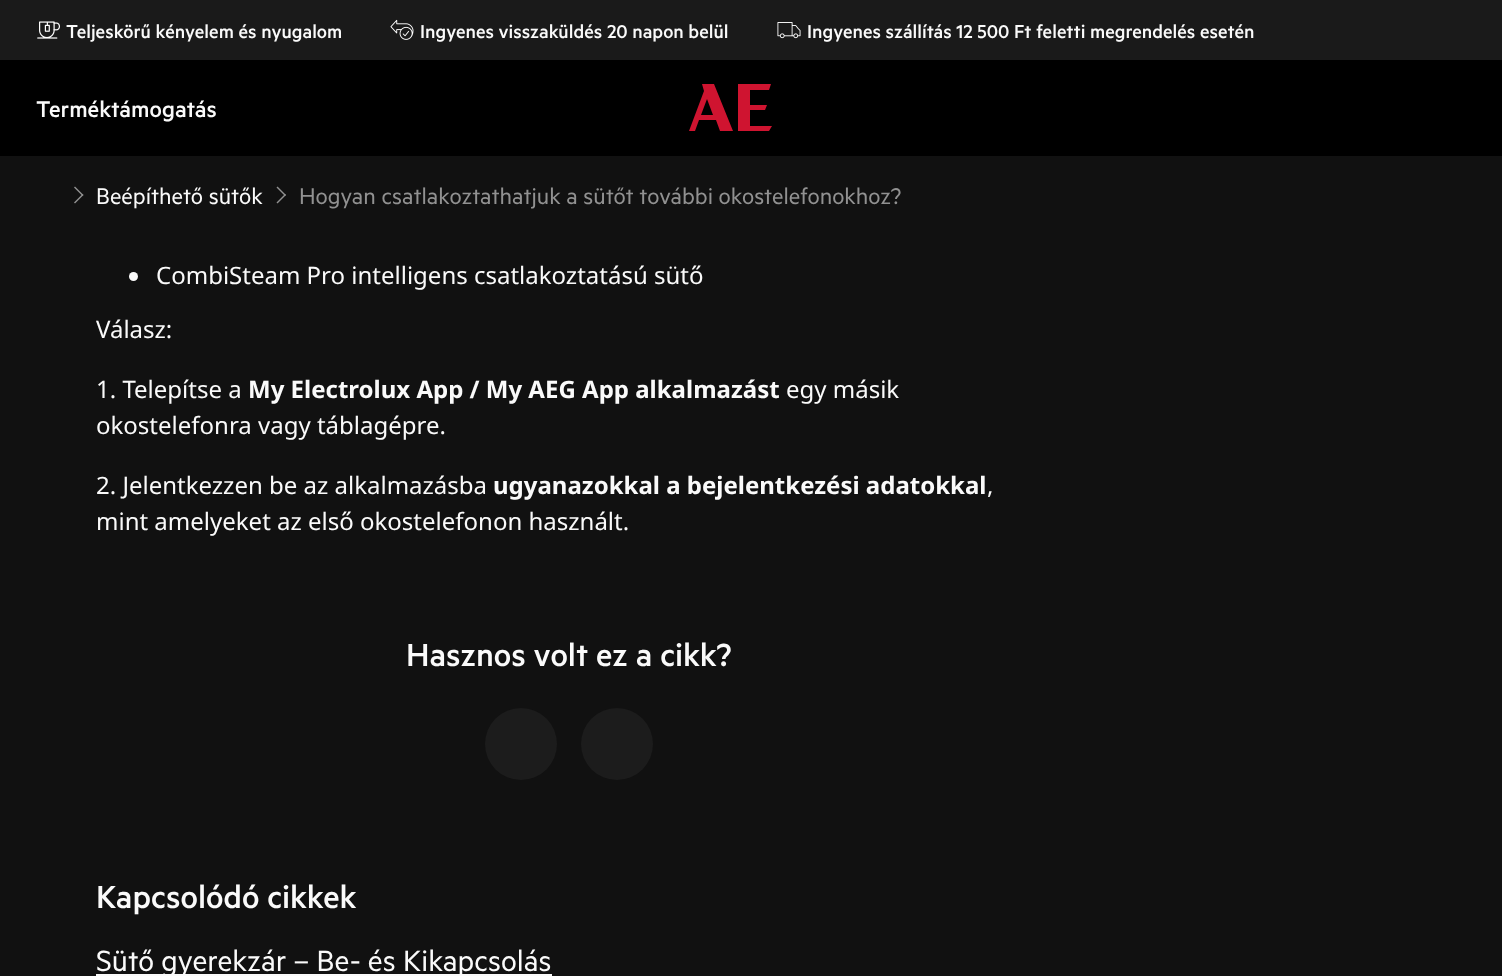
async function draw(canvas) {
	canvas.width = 1502;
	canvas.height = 976;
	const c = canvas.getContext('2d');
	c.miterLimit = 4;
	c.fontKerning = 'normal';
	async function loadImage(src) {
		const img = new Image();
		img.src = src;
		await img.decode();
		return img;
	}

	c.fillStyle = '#111';
	c.fillRect(0, 0, 1502, 976);
	c.fillStyle = '#1a1a1a';
	c.fillRect(0, 0, 1502, 60);
	c.drawImage(await loadImage('img1.png'), 37, 21, 23, 18);
	c.font = '500 21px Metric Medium';
	c.fillStyle = '#fafafa';
	c.fillText('Teljeskörű kényelem és nyugalom', 66, 38);
	c.drawImage(await loadImage('img2.png'), 390, 19, 24, 21);
	c.fillText('Ingyenes visszaküldés 20 napon belül', 420, 38);
	c.drawImage(await loadImage('img3.png'), 777, 22, 24, 17);
	c.fillText('Ingyenes szállítás 12 500 Ft feletti megrendelés esetén', 807, 38);
	c.fillStyle = '#000';
	c.fillRect(0, 60, 1502, 96);
	c.font = '500 25.5px Metric Medium';
	c.fillStyle = '#fafafa';
	c.fillText('Terméktámogatás', 36, 117);
	c.fillStyle = '#cf1430';
	c.beginPath();
	c.moveTo(702, 84);
	c.lineTo(704, 91);
	c.lineTo(689, 131);
	c.lineTo(695, 131);
	c.lineTo(699, 120);
	c.lineTo(716, 120);
	c.lineTo(720, 131);
	c.lineTo(733, 131);
	c.lineTo(714, 84);
	c.closePath();
	c.moveTo(701, 115);
	c.lineTo(707, 99);
	c.lineTo(713, 115);
	c.closePath();
	c.moveTo(750, 110);
	c.lineTo(765, 110);
	c.lineTo(767, 105);
	c.lineTo(750, 105);
	c.lineTo(750, 90);
	c.lineTo(769, 90);
	c.lineTo(771, 84);
	c.lineTo(738, 84);
	c.lineTo(738, 131);
	c.lineTo(769, 131);
	c.lineTo(772, 126);
	c.lineTo(750, 126);
	c.closePath();
	c.fill();
	c.fillStyle = '#919191';
	c.beginPath();
	c.moveTo(75, 186.5);
	c.lineTo(83.5, 195);
	c.lineTo(82.5, 196);
	c.lineTo(74, 187.5);
	c.closePath();
	c.fill();
	c.beginPath();
	c.moveTo(82.5, 194);
	c.lineTo(83.5, 195);
	c.lineTo(75, 203.5);
	c.lineTo(74, 202.5);
	c.closePath();
	c.fill();
	c.font = '25.5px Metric';
	c.fillStyle = '#fafafa';
	c.fillText('Beépíthető sütők', 96, 204);
	c.fillStyle = '#919191';
	c.beginPath();
	c.moveTo(277.5, 186.5);
	c.lineTo(286, 195);
	c.lineTo(285, 196);
	c.lineTo(276.5, 187.5);
	c.closePath();
	c.fill();
	c.beginPath();
	c.moveTo(285, 194);
	c.lineTo(286, 195);
	c.lineTo(277.5, 203.5);
	c.lineTo(276.5, 202.5);
	c.closePath();
	c.fill();
	c.fillText('Hogyan csatlakoztathatjuk a sütőt további okostelefonokhoz?', 299, 204);
	c.fillStyle = '#fafafa';
	c.beginPath();
	c.arc(133.5, 276.5, 4.5, 0, 2 * Math.PI);
	c.fill();
	c.font = '24px Noto Sans';
	for (const [text, x, y] of [
		['CombiSteam Pro intelligens csatlakoztatású sütő', 156, 284],
		['Válasz:', 96, 338],
		['1. Telepítse a', 96, 398],
	]) {
		c.fillText(text, x, y);
	}
	c.font = 'bold 24px Noto Sans';
	c.fillText('My Electrolux App / My AEG App alkalmazást', 248, 398);
	c.font = '24px Noto Sans';
	for (const [text, x, y] of [
		['egy másik', 786, 398],
		['okostelefonra vagy táblagépre.', 96, 434],
		['2. Jelentkezzen be az alkalmazásba', 96, 494],
	]) {
		c.fillText(text, x, y);
	}
	c.font = 'bold 24px Noto Sans';
	c.fillText('ugyanazokkal a bejelentkezési adatokkal', 493, 494);
	c.font = '24px Noto Sans';
	c.fillText(',', 987, 494);
	c.fillText('mint amelyeket az első okostelefonon használt.', 96, 530);
	c.font = '500 36px Metric Medium';
	c.fillText('Hasznos volt ez a cikk?', 406, 666);
	c.fillStyle = '#1c1c1c';
	c.beginPath();
	c.arc(521, 744, 36, 0, 2 * Math.PI);
	c.fill();
	c.beginPath();
	c.arc(617, 744, 36, 0, 2 * Math.PI);
	c.fill();
	c.fillStyle = '#fafafa';
	c.fillText('Kapcsolódó cikkek', 96, 908);
	c.fillRect(96, 974, 456, 2);
	c.font = '33px Metric';
	c.fillText('Sütő gyerekzár – Be- és Kikapcsolás', 96, 971);
}

draw(document.querySelector('canvas'));
